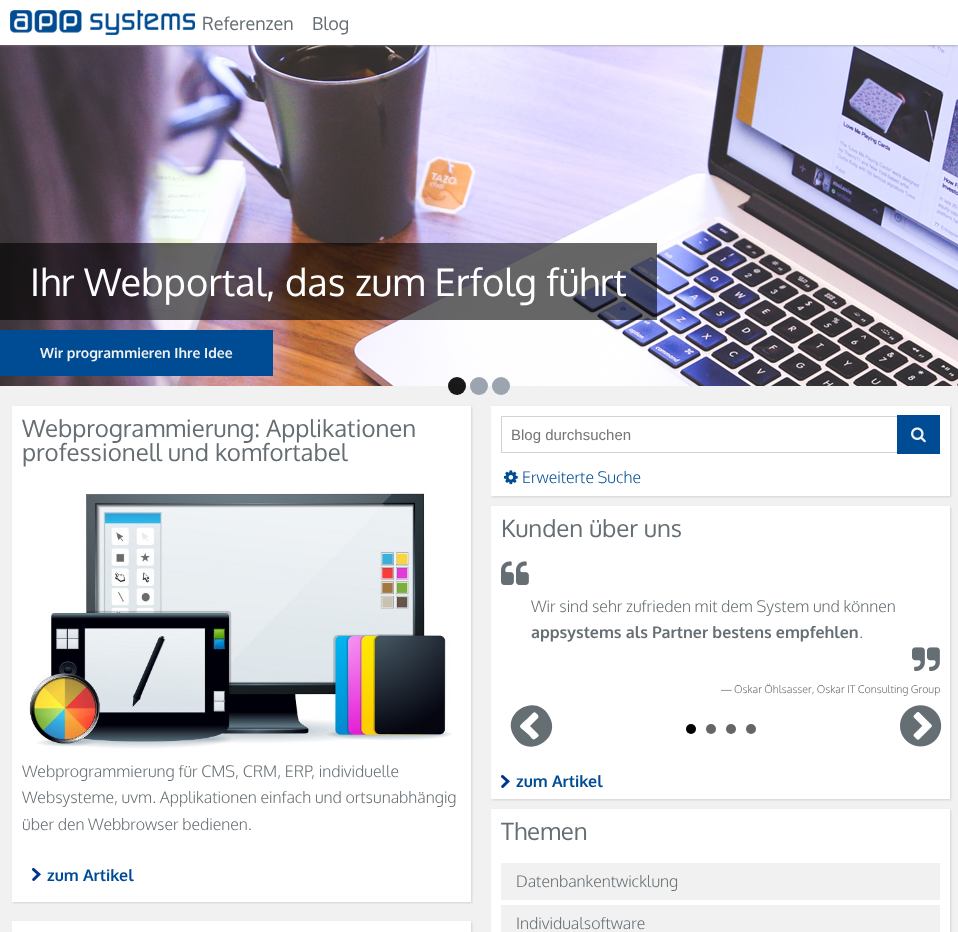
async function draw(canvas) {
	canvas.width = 958;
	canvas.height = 932;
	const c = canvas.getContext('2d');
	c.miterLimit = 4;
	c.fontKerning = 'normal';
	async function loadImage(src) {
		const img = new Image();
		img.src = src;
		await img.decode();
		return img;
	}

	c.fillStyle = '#f1f1f1';
	c.fillRect(0, 0, 958, 932);
	c.drawImage(await loadImage('img2.png'), 0, 45, 958, 341);
	c.fillStyle = '#808080';
	c.filter = 'blur(1.5px)';
	c.beginPath();
	c.rect(0, 0, 958, 45);
	c.fill();
	c.filter = 'none';
	c.fillStyle = '#fff';
	c.fillRect(0, 0, 958, 45);
	c.drawImage(await loadImage('img1.png'), 10, 10, 185, 25);
	c.font = '18px Oxygen';
	c.fillStyle = '#656e73';
	c.fillText('Referenzen', 202, 30);
	c.fillText('Blog', 312, 30);
	c.fillStyle = '#00000099';
	c.fillRect(0, 243, 657, 77);
	c.font = '38px Oxygen';
	c.fillStyle = '#fff';
	c.fillText('Ihr Webportal, das zum Erfolg führt', 30, 296);
	c.fillStyle = '#004c94';
	c.fillRect(0, 330, 273, 46);
	c.font = 'bold 14px Oxygen';
	c.fillStyle = '#f0f1f1';
	c.fillText('Wir programmieren Ihre Idee', 40, 358);
	c.fillStyle = '#000000e6';
	c.beginPath();
	c.arc(457, 386, 9, 0, 2 * Math.PI);
	c.fill();
	c.fillStyle = '#9ca4af';
	c.beginPath();
	c.arc(479, 386, 9, 0, 2 * Math.PI);
	c.fill();
	c.beginPath();
	c.arc(501, 386, 9, 0, 2 * Math.PI);
	c.fill();
	c.fillStyle = '#d3d3d3';
	c.filter = 'blur(1px)';
	c.beginPath();
	c.rect(13, 407, 459, 496);
	c.fill();
	c.filter = 'none';
	c.fillStyle = '#fff';
	c.fillRect(12, 406, 459, 496);
	c.font = '24px Oxygen';
	c.fillStyle = '#656e73';
	c.fillText('Webprogrammierung: Applikationen', 22, 437);
	c.fillText('professionell und komfortabel', 22, 461);
	c.drawImage(await loadImage('img3.png'), 27, 493, 425, 256);
	c.font = '300 16px Oxygen';
	for (const [text, x, y] of [
		['Webprogrammierung für CMS, CRM, ERP, individuelle', 22, 777],
		['Websysteme, uvm. Applikationen einfach und ortsunabhängig', 22, 803],
		['über den Webbrowser bedienen.', 22, 830],
	]) {
		c.fillText(text, x, y);
	}
	c.drawImage(await loadImage('img4.png'), 32, 868, 9, 13);
	c.font = 'bold 16px Oxygen';
	c.fillStyle = '#004c94';
	c.fillText('zum Artikel', 47, 881);
	c.fillStyle = '#d3d3d3';
	c.filter = 'blur(1px)';
	c.beginPath();
	c.rect(492, 407, 459, 90);
	c.fill();
	c.filter = 'none';
	c.fillStyle = '#fff';
	c.fillRect(491, 406, 459, 90);
	c.strokeStyle = '#d3d3d3';
	c.strokeRect(501.5, 416.5, 415, 36);
	c.font = '15px Liberation Sans';
	c.fillStyle = '#757575';
	c.fillText('Blog durchsuchen', 511, 440);
	c.fillStyle = '#004c94';
	c.fillRect(897, 415, 43, 39);
	c.drawImage(await loadImage('img5.png'), 911, 427, 15, 16);
	c.drawImage(await loadImage('img6.png'), 504, 470, 14, 15);
	c.font = '300 16px Oxygen';
	c.fillText('Erweiterte Suche', 522, 483);
	c.fillStyle = '#d3d3d3';
	c.filter = 'blur(1px)';
	c.beginPath();
	c.rect(492, 507, 459, 293);
	c.fill();
	c.filter = 'none';
	c.fillStyle = '#fff';
	c.fillRect(491, 506, 459, 293);
	c.font = '24px Oxygen';
	c.fillStyle = '#656e73';
	c.fillText('Kunden über uns', 501, 537);
	c.drawImage(await loadImage('img7.png'), 501, 561, 28, 24);
	c.font = '300 16px Oxygen';
	c.fillText('Wir sind sehr zufrieden mit dem System und können', 531, 612);
	c.font = 'bold 16px Oxygen';
	c.fillText('appsystems als Partner bestens empfehlen', 531, 638);
	c.font = '300 16px Oxygen';
	c.fillText('.', 859, 638);
	c.drawImage(await loadImage('img8.png'), 912, 647, 28, 24);
	c.font = '10.7px Liberation Sans';
	c.fillText('—', 721, 693);
	c.font = '300 10.7px Oxygen';
	c.fillText('Oskar Öhlsasser, Oskar IT Consulting Group', 734, 693);
	c.beginPath();
	c.moveTo(535, 739);
	c.bezierCurveTo(539, 736, 540, 736, 537, 733);
	c.lineTo(530, 726);
	c.lineTo(538, 718);
	c.bezierCurveTo(539, 716, 538, 715, 537, 714);
	c.bezierCurveTo(534, 711, 534, 712, 531, 715);
	c.lineTo(527, 719);
	c.bezierCurveTo(517, 728, 518, 725, 529, 735);
	c.bezierCurveTo(530, 736, 533, 741, 535, 739);
	c.closePath();
	c.moveTo(549, 716);
	c.bezierCurveTo(563, 739, 527, 760, 514, 736);
	c.bezierCurveTo(500, 713, 536, 692, 549, 716);
	c.closePath();
	c.fill();
	c.drawImage(await loadImage('img9.png'), 900, 705, 42, 42);
	c.fillStyle = '#000';
	c.beginPath();
	c.arc(691, 729, 5, 0, 2 * Math.PI);
	c.fill();
	c.fillStyle = '#666';
	c.beginPath();
	c.arc(711, 729, 5, 0, 2 * Math.PI);
	c.fill();
	c.beginPath();
	c.arc(731, 729, 5, 0, 2 * Math.PI);
	c.fill();
	c.beginPath();
	c.arc(751, 729, 5, 0, 2 * Math.PI);
	c.fill();
	c.drawImage(await loadImage('img4.png'), 501, 775, 9, 13);
	c.font = 'bold 16px Oxygen';
	c.fillStyle = '#004c94';
	c.fillText('zum Artikel', 516, 787);
	c.fillStyle = '#d3d3d3';
	c.filter = 'blur(1px)';
	c.beginPath();
	c.rect(492, 810, 459, 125);
	c.fill();
	c.filter = 'none';
	c.fillStyle = '#fff';
	c.fillRect(491, 809, 459, 123);
	c.font = '24px Oxygen';
	c.fillStyle = '#656e73';
	c.fillText('Themen', 501, 840);
	c.fillStyle = '#f1f1f1';
	c.fillRect(501, 863, 439, 37);
	c.font = '300 16px Oxygen';
	c.fillStyle = '#656e73';
	c.fillText('Datenbankentwicklung', 516, 887);
	c.fillStyle = '#f1f1f1';
	c.fillRect(501, 905, 439, 27);
	c.fillStyle = '#656e73';
	c.fillText('Individualsoftware', 516, 929);
	c.fillStyle = '#d3d3d3';
	c.filter = 'blur(1px)';
	c.beginPath();
	c.rect(13, 922, 459, 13);
	c.fill();
	c.filter = 'none';
	c.fillStyle = '#fff';
	c.fillRect(12, 921, 459, 11);
}

draw(document.querySelector('canvas'));
